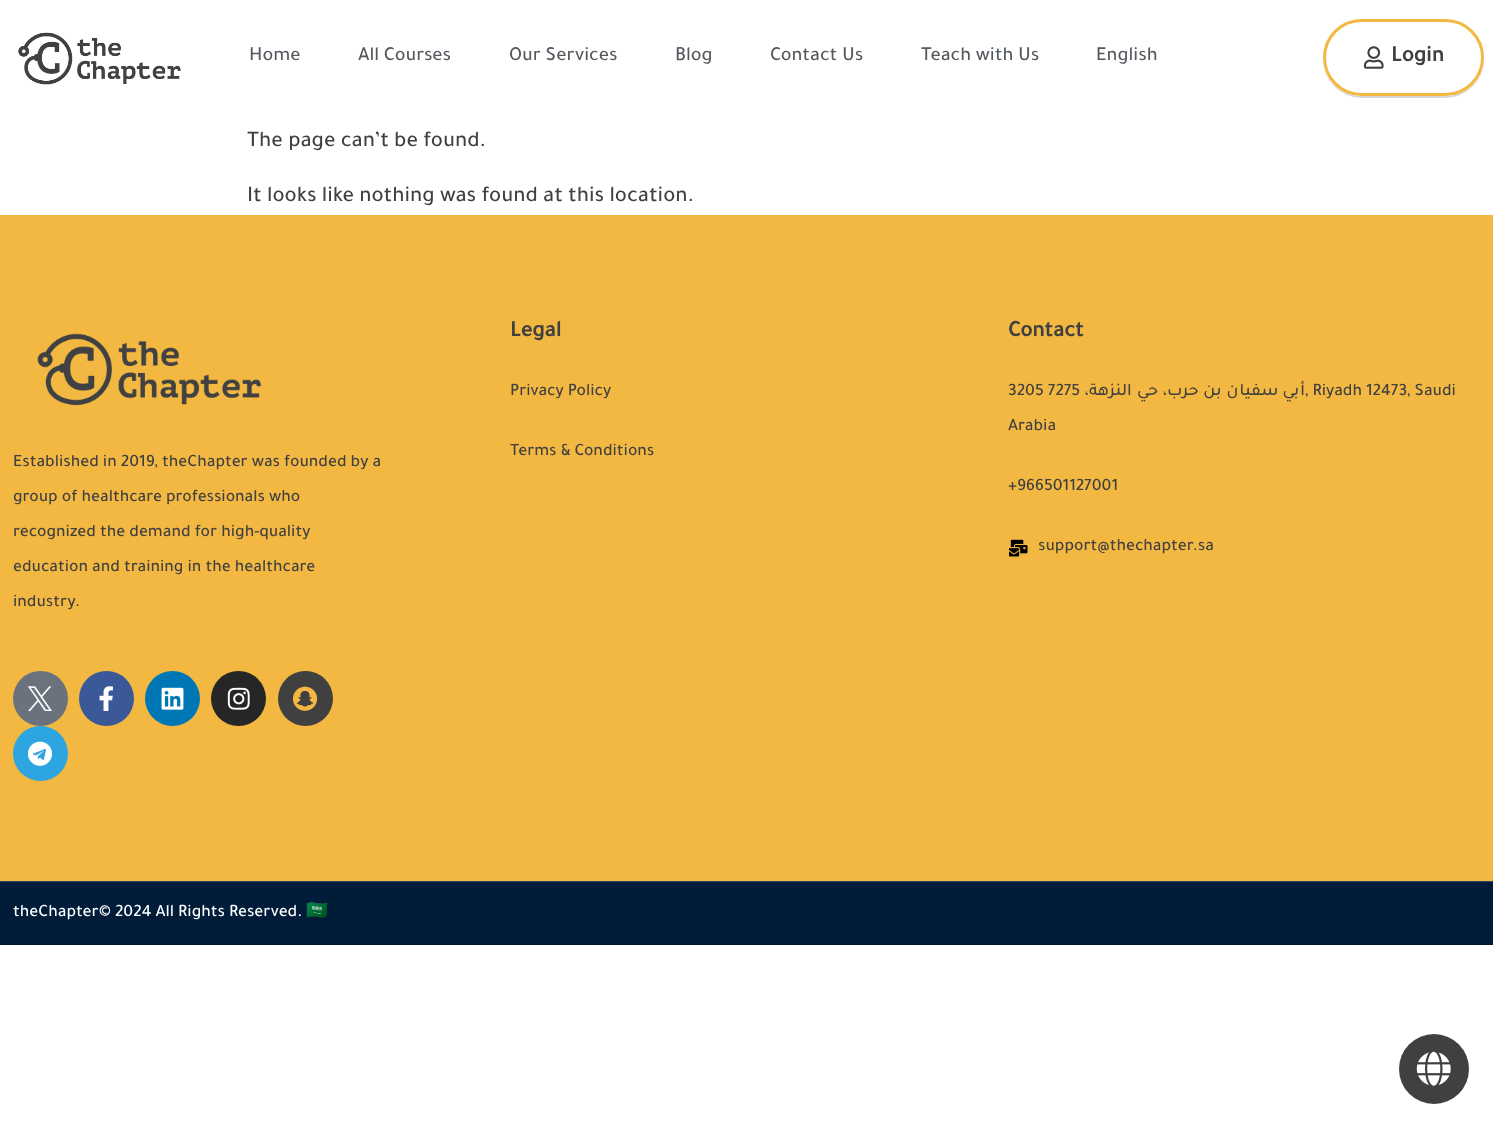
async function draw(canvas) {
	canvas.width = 1493;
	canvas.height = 1125;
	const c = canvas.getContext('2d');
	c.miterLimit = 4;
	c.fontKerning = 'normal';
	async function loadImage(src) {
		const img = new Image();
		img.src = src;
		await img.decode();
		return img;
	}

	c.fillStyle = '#fff';
	c.fillRect(0, 0, 1493, 1125);
	c.drawImage(await loadImage('img1.png'), 18, 32, 163, 53);
	c.font = '500 20px Tajawal';
	c.fillStyle = '#54595f';
	for (const [text, x, y] of [
		['Home', 249, 60],
		['All Courses', 358, 60],
		['Our Services', 509, 60],
		['Blog', 675, 60],
		['Contact Us', 770, 60],
		['Teach with Us', 921, 60],
		['English', 1096, 60],
	]) {
		c.fillText(text, x, y);
	}
	c.save();
	c.beginPath();
	c.moveTo(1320, 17);
	c.lineTo(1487, 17);
	c.lineTo(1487, 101);
	c.lineTo(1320, 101);
	c.closePath();
	c.moveTo(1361.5, 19);
	c.lineTo(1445.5, 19);
	c.bezierCurveTo(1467, 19, 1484, 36, 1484, 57.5);
	c.bezierCurveTo(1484, 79, 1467, 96, 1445.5, 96);
	c.lineTo(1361.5, 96);
	c.bezierCurveTo(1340, 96, 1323, 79, 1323, 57.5);
	c.bezierCurveTo(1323, 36, 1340, 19, 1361.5, 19);
	c.closePath();
	c.clip('evenodd');
	c.fillStyle = '#00000029';
	c.filter = 'blur(0.5px)';
	c.beginPath();
	c.roundRect(1323, 20, 161, 78, 39);
	c.fill();
	c.filter = 'none';
	c.restore();
	c.beginPath();
	c.roundRect(1324.5, 20.5, 158, 74, 37);
	c.strokeStyle = '#f3b842';
	c.lineWidth = 3;
	c.stroke();
	c.drawImage(await loadImage('img2.png'), 1363, 46, 21, 23);
	c.font = 'bold 22.5px Tajawal';
	c.fillStyle = '#404040';
	c.fillText('Login', 1391, 61);
	c.font = '500 22.5px Tajawal';
	c.fillText('The page can’t be found.', 247, 146);
	c.fillText('It looks like nothing was found at this location.', 247, 201);
	c.fillStyle = '#f3b842';
	c.fillRect(0, 215, 1493, 666);
	c.drawImage(await loadImage('img3.png'), 37, 333, 224, 73);
	c.font = '500 17.5px Tajawal';
	c.fillStyle = '#404040';
	for (const [text, x, y] of [
		['Established in 2019, theChapter was founded by a', 13, 466],
		['group of healthcare professionals who', 13, 501],
		['recognized the demand for high-quality', 13, 536],
		['education and training in the healthcare', 13, 571],
		['industry.', 13, 606],
	]) {
		c.fillText(text, x, y);
	}
	c.fillStyle = '#69727d';
	c.beginPath();
	c.arc(40.5, 698.5, 27.5, 0, 2 * Math.PI);
	c.fill();
	c.drawImage(await loadImage('img4.png'), 28, 686, 24, 25);
	c.fillStyle = '#3b5998';
	c.beginPath();
	c.arc(106.5, 698.5, 27.5, 0, 2 * Math.PI);
	c.fill();
	c.drawImage(await loadImage('img5.png'), 99, 686, 14, 25);
	c.fillStyle = '#0077b5';
	c.beginPath();
	c.arc(172.5, 698.5, 27.5, 0, 2 * Math.PI);
	c.fill();
	c.drawImage(await loadImage('img6.png'), 161, 687, 23, 23);
	c.fillStyle = '#262626';
	c.beginPath();
	c.arc(238.5, 698.5, 27.5, 0, 2 * Math.PI);
	c.fill();
	c.drawImage(await loadImage('img7.png'), 227, 687, 23, 23);
	c.fillStyle = '#404040';
	c.beginPath();
	c.arc(305.5, 698.5, 27.5, 0, 2 * Math.PI);
	c.fill();
	c.drawImage(await loadImage('img8.png'), 293, 686, 25, 25);
	c.fillStyle = '#2ca5e0';
	c.beginPath();
	c.arc(40.5, 753.5, 27.5, 0, 2 * Math.PI);
	c.fill();
	c.drawImage(await loadImage('img9.png'), 28, 741, 25, 25);
	c.font = 'bold 22.5px Tajawal';
	c.fillStyle = '#404040';
	c.fillText('Legal', 510, 336);
	c.font = '500 17.5px Tajawal';
	c.fillText('Privacy Policy', 510, 395);
	c.fillText('Terms & Conditions', 510, 455);
	c.font = 'bold 22.5px Tajawal';
	c.fillText('Contact', 1008, 336);
	c.font = '500 17.5px Tajawal';
	c.fillText('3205 7275', 1008, 395);
	c.direction = 'rtl';
	c.fillText('أبي سفيان بن حرب، حي النزهة،', 1305, 395);
	c.direction = 'ltr';
	for (const [text, x, y] of [
		[', Riyadh 12473, Saudi', 1305, 395],
		['Arabia', 1008, 430],
		['+966501127001', 1008, 490],
	]) {
		c.fillText(text, x, y);
	}
	c.drawImage(await loadImage('img10.png'), 1009, 539, 19, 18);
	c.fillText('support@thechapter.sa', 1038, 550);
	c.fillStyle = '#001c38';
	c.fillRect(0, 882, 1493, 63);
	c.fillStyle = '#30475e';
	c.fillRect(0, 881, 1493, 1);
	c.fillStyle = '#fff';
	c.fillText('theChapter© 2024 All Rights Reserved.', 13, 916);
	c.font = '17.5px Noto Color Emoji';
	c.fillText('🇸🇦', 306, 916);
	c.fillStyle = '#404040';
	c.beginPath();
	c.arc(1434, 1069, 35, 0, 2 * Math.PI);
	c.fill();
	c.drawImage(await loadImage('img11.png'), 1416, 1051, 35, 35);
}

draw(document.querySelector('canvas'));
